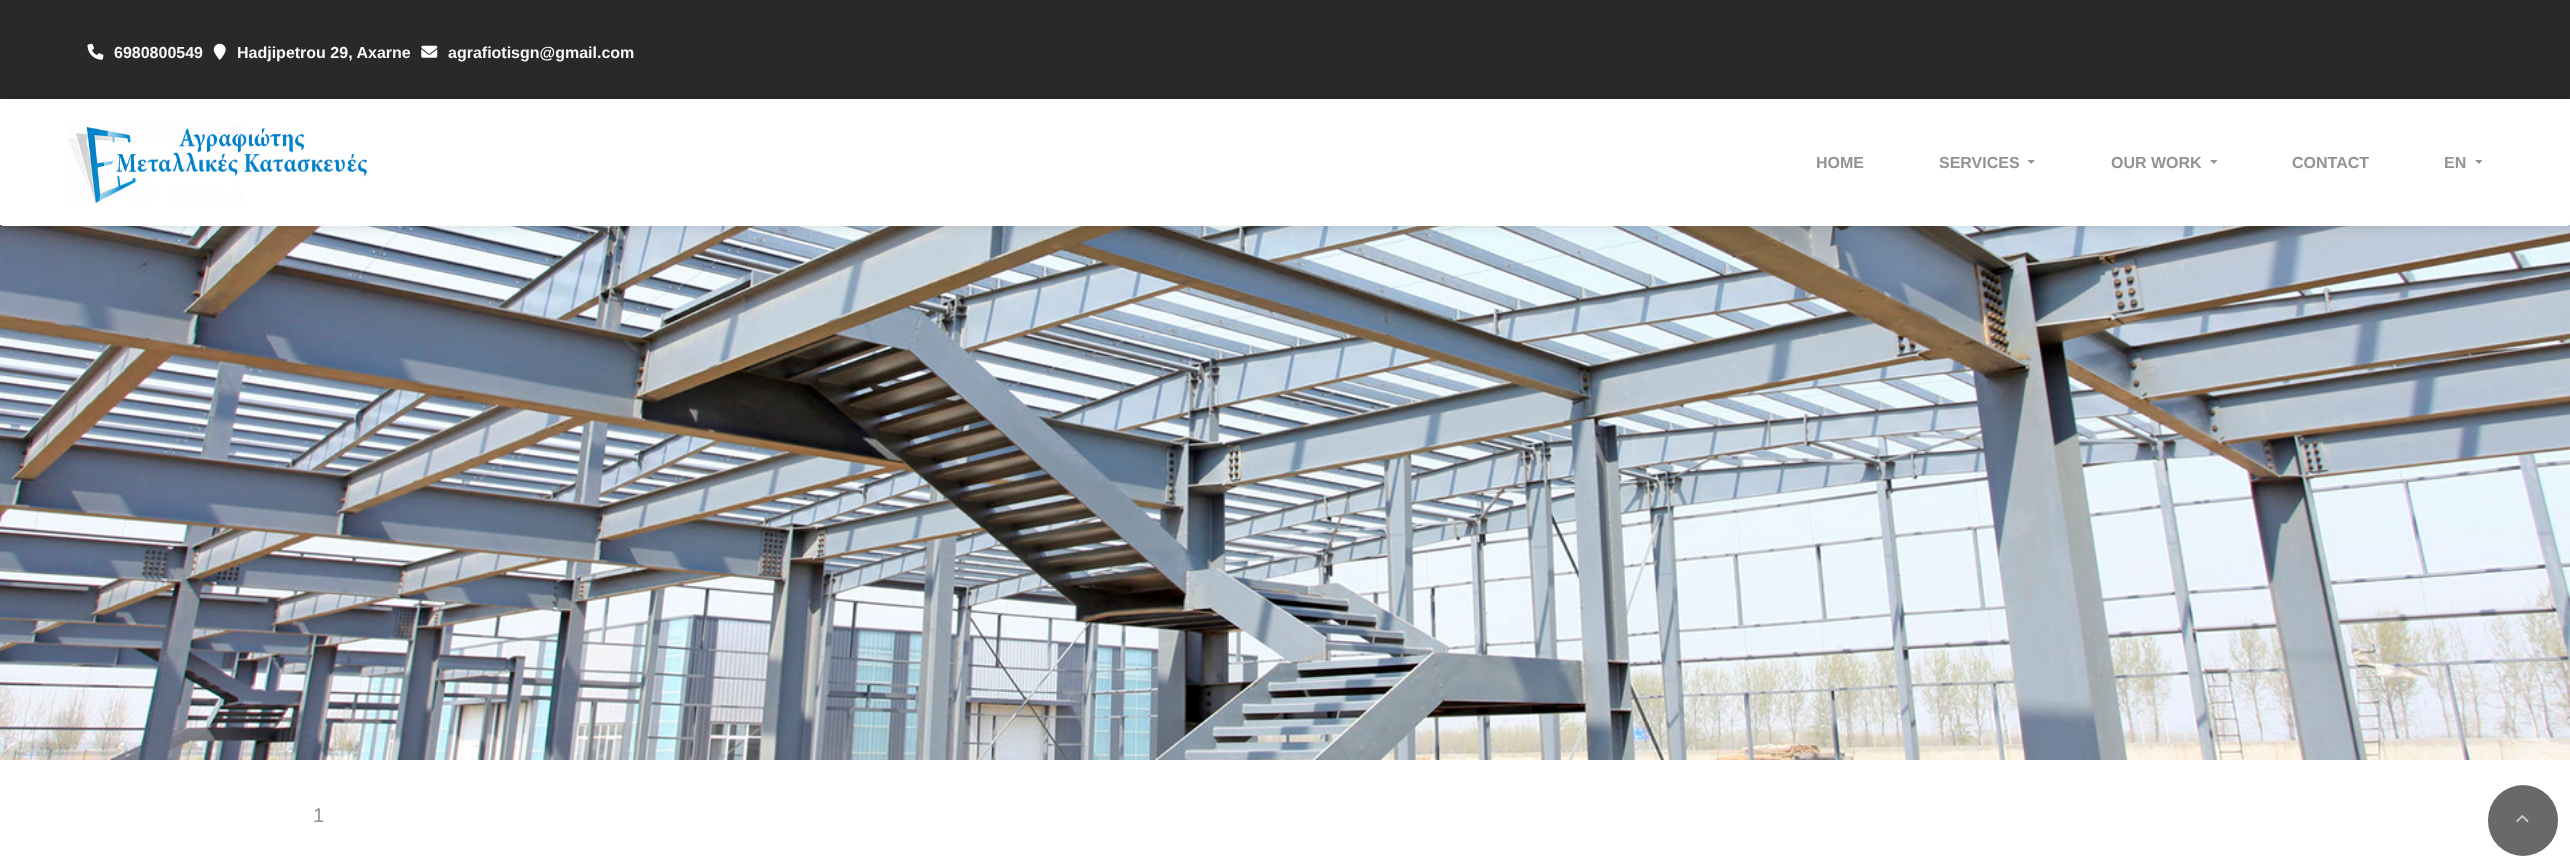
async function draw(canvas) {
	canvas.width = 2570;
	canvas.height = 868;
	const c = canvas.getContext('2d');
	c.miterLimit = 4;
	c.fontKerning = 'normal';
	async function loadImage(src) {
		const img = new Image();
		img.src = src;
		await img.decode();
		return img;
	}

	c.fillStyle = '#fff';
	c.fillRect(0, 0, 2570, 868);
	c.fillStyle = '#2a2829';
	c.fillRect(0, 0, 2570, 99);
	c.drawImage(await loadImage('img1.png'), 87, 43, 17, 17);
	c.font = 'bold 16px Arimo';
	c.fillStyle = '#f7f7f7';
	c.fillText('6980800549', 114, 58);
	c.drawImage(await loadImage('img2.png'), 213, 43, 13, 17);
	c.fillText('Hadjipetrou 29, Axarne', 237, 58);
	c.drawImage(await loadImage('img3.png'), 421, 45, 17, 13);
	c.fillText('agrafiotisgn@gmail.com', 448, 58);
	c.drawImage(await loadImage('img5.png'), 0, 225, 2570, 535);
	c.fillStyle = '#11111126';
	c.filter = 'blur(6px)';
	c.beginPath();
	c.roundRect(0, 99, 2570, 127, 4);
	c.fill();
	c.filter = 'none';
	c.fillStyle = '#fff';
	c.beginPath();
	c.roundRect(0, 99, 2570, 127, [0, 0, 4, 4]);
	c.fill();
	c.drawImage(await loadImage('img4.png'), 68, 125, 299, 79);
	c.fillStyle = '#939393';
	c.fillText('HOME', 1816, 168);
	c.fillText('SERVICES', 1939, 168);
	c.beginPath();
	c.moveTo(2027.5, 160);
	c.lineTo(2035, 160);
	c.lineTo(2031, 164);
	c.closePath();
	c.fill();
	c.fillText('OUR WORK', 2111, 168);
	c.beginPath();
	c.moveTo(2210, 160);
	c.lineTo(2217.5, 160);
	c.lineTo(2214, 164);
	c.closePath();
	c.fill();
	c.fillText('CONTACT', 2292, 168);
	c.fillText('EN', 2444, 168);
	c.beginPath();
	c.moveTo(2475, 160);
	c.lineTo(2482.5, 160);
	c.lineTo(2479, 164);
	c.closePath();
	c.fill();
	c.font = '20px Arimo';
	c.fillText('1', 313, 822);
	c.fillStyle = '#6a6969';
	c.beginPath();
	c.roundRect(2488, 785, 70, 71, 35);
	c.fill();
	c.drawImage(await loadImage('img6.png'), 2516, 815, 13, 7);
}

draw(document.querySelector('canvas'));
